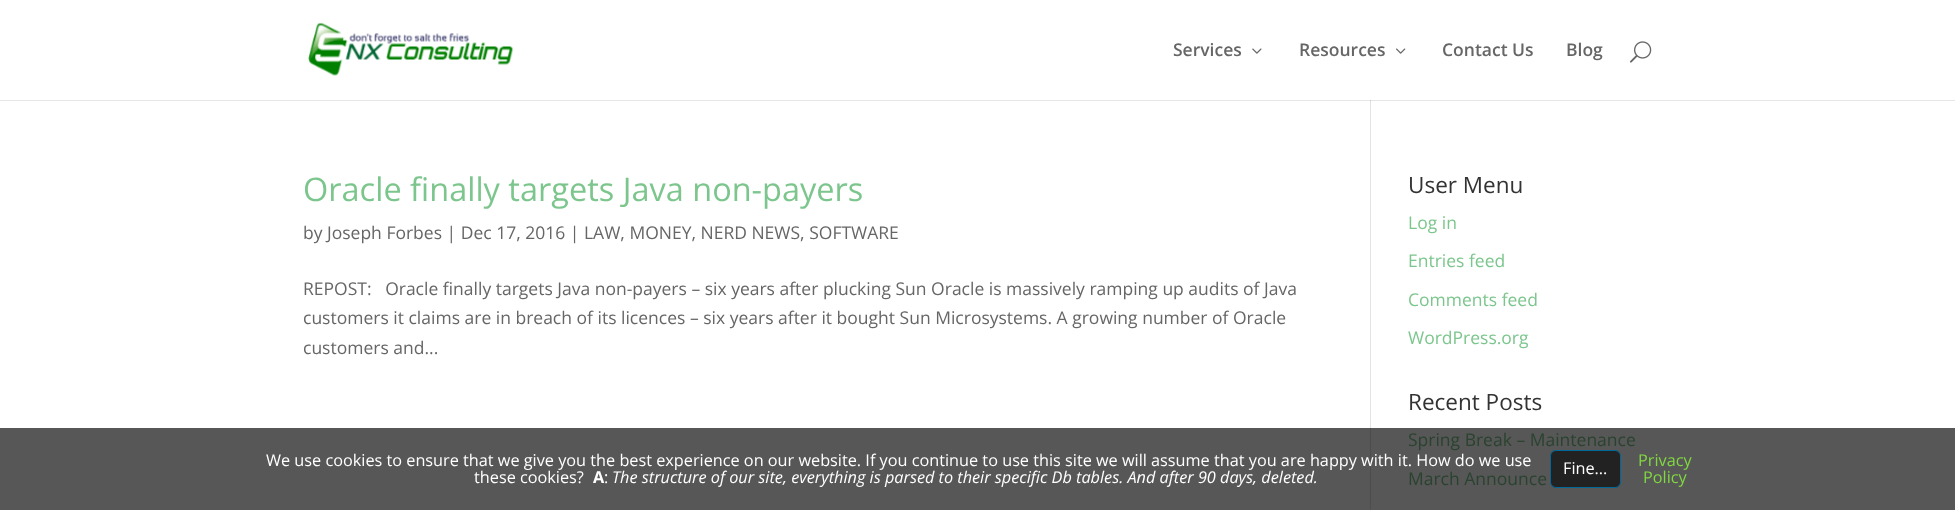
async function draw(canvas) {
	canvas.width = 1955;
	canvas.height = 510;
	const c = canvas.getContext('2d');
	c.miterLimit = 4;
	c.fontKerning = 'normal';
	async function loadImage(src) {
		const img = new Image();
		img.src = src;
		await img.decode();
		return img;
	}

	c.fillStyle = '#fff';
	c.fillRect(0, 0, 1955, 510);
	c.fillStyle = '#575757';
	c.fillRect(0, 428, 1955, 82);
	c.fillStyle = '#e6e6e6';
	c.fillRect(0, 100, 1955, 1);
	c.drawImage(await loadImage('img1.png'), 308, 22, 206, 54);
	c.font = '600 17.5px Open Sans';
	c.fillStyle = '#666';
	c.fillText('Services', 1173, 56);
	c.drawImage(await loadImage('img2.png'), 1252, 48, 10, 6);
	c.fillText('Resources', 1299, 56);
	c.drawImage(await loadImage('img3.png'), 1396, 48, 10, 6);
	c.fillText('Contact Us', 1442, 56);
	c.fillText('Blog', 1566, 56);
	c.drawImage(await loadImage('img4.png'), 1630, 41, 22, 22);
	for (const [x, y, w, h, color] of [
		[1370, 100, 1, 328, '#e2e2e2'],
		[1370, 428, 1, 82, '#4d4d4d'],
		[1370, 100, 1, 1, '#cbcbcb'],
	]) {
		c.fillStyle = color;
		c.fillRect(x, y, w, h);
	}
	c.font = '32.5px Open Sans';
	c.fillStyle = '#7cc68d';
	c.fillText('Oracle finally targets Java non-payers', 303, 201);
	c.font = '17.5px Open Sans';
	c.fillStyle = '#666';
	for (const [text, x, y] of [
		['by Joseph Forbes | Dec 17, 2016 | LAW, MONEY, NERD NEWS, SOFTWARE', 303, 239],
		['REPOST:   Oracle finally targets Java non-payers – six years after plucking Sun Oracle is massively ramping up audits of Java', 303, 295],
		['customers it claims are in breach of its licences – six years after it bought Sun Microsystems. A growing number of Oracle', 303, 324],
		['customers and...', 303, 354],
	]) {
		c.fillText(text, x, y);
	}
	c.font = '22.5px Open Sans';
	c.fillStyle = '#333';
	c.fillText('User Menu', 1408, 193);
	c.font = '17.5px Open Sans';
	c.fillStyle = '#7cc68d';
	for (const [text, x, y] of [
		['Log in', 1408, 229],
		['Entries feed', 1408, 267],
		['Comments feed', 1408, 306],
		['WordPress.org', 1408, 344],
	]) {
		c.fillText(text, x, y);
	}
	c.font = '22.5px Open Sans';
	c.fillStyle = '#333';
	c.fillText('Recent Posts', 1408, 410);
	c.font = '17.5px Open Sans';
	c.fillStyle = '#2a4330';
	c.fillText('Spring Break – Maintenance', 1408, 446);
	c.fillText('March Announce', 1408, 485);
	c.font = '16.25px Open Sans';
	c.fillStyle = '#fff';
	c.fillText('We use cookies to ensure that we give you the best experience on our website. If you continue to use this site we will assume that you are happy with it. How do we use', 266, 466);
	c.fillText('these cookies?', 474, 483);
	c.font = 'bold 16.25px Open Sans';
	c.fillText('A', 593, 483);
	c.font = '16.25px Open Sans';
	c.fillText(':', 604, 483);
	c.font = 'italic 16.25px Open Sans';
	c.fillText('The structure of our site, everything is parsed to their specific Db tables. And after 90 days, deleted.', 612, 483);
	c.fillStyle = '#222';
	c.beginPath();
	c.roundRect(1550.5, 450.5, 70, 37, 5.5);
	c.fill();
	c.strokeStyle = '#006799';
	c.stroke();
	c.font = '16.25px Open Sans';
	c.fillStyle = '#fff';
	c.fillText('Fine...', 1563, 474);
	c.fillStyle = '#81d742';
	c.fillText('Privacy', 1638, 466);
	c.fillText('Policy', 1643, 483);
}

draw(document.querySelector('canvas'));
